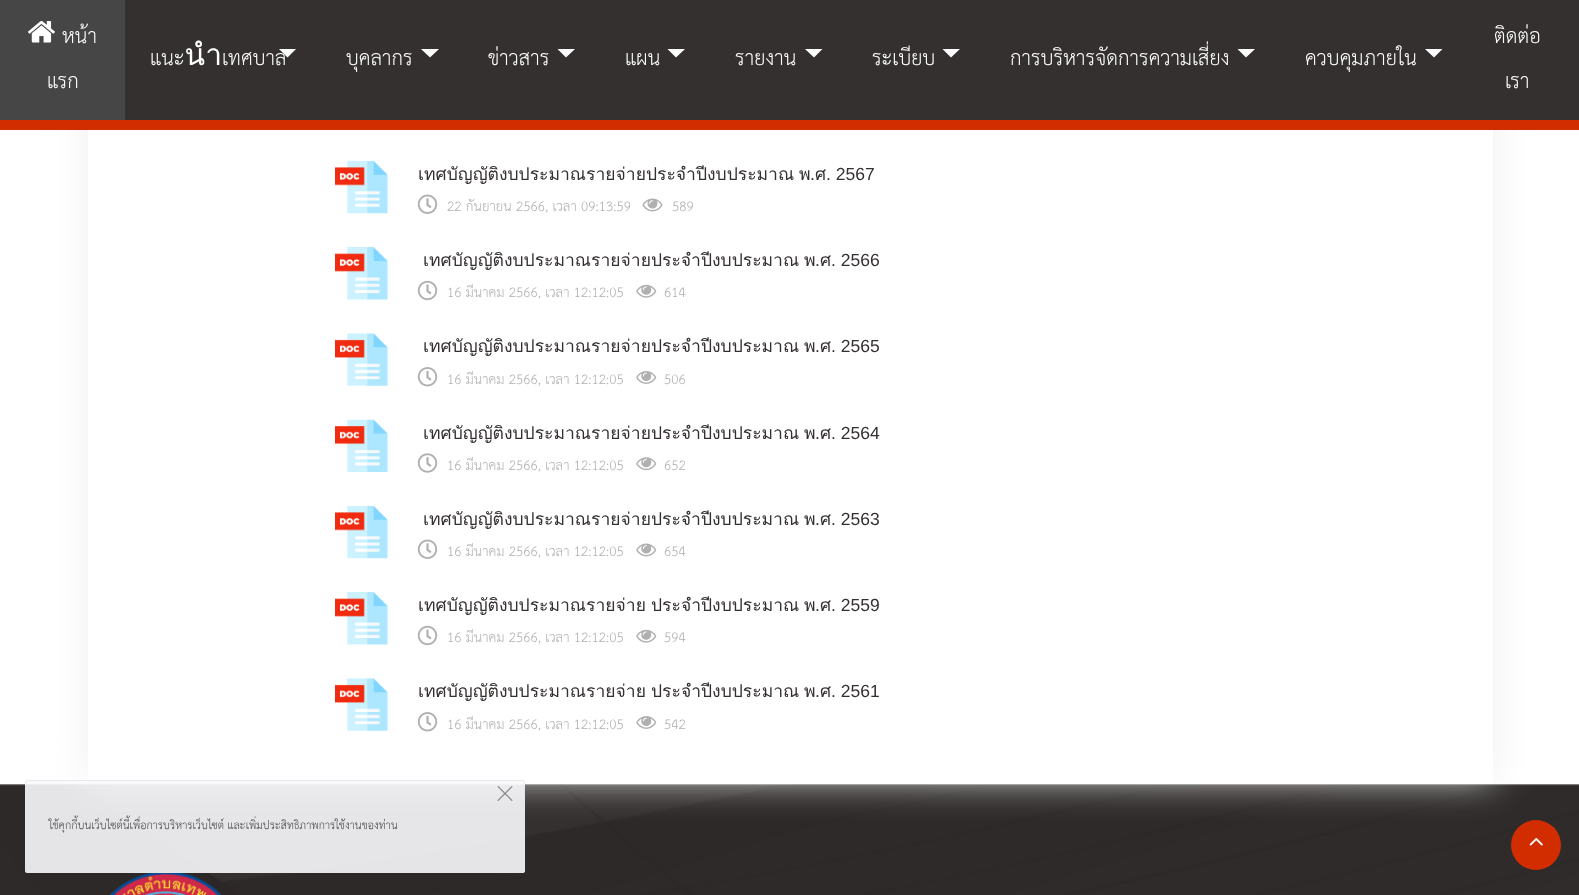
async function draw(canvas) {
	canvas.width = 1579;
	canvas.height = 895;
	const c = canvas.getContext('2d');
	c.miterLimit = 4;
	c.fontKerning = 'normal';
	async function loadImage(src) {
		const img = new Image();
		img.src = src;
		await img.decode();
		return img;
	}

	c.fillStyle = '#fff';
	c.fillRect(0, 0, 1579, 895);
	c.drawImage(await loadImage('img15.png'), 0, 784, 1579, 111);
	c.fillStyle = '#eee';
	c.filter = 'blur(19px)';
	c.beginPath();
	c.rect(88, -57, 1405, 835);
	c.fill();
	c.filter = 'none';
	for (const [x, y, w, h, color] of [
		[0, 120, 1579, 10, '#d12d00'],
		[125, 0, 1454, 120, '#353030'],
		[0, 0, 125, 120, '#464646'],
	]) {
		c.fillStyle = color;
		c.fillRect(x, y, w, h);
	}
	c.drawImage(await loadImage('img1.png'), 28, 21, 27, 22);
	c.font = '30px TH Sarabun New';
	c.fillStyle = '#fff';
	for (const [text, x, y] of [
		['หน้า', 62, 43],
		['แรก', 47, 88],
		['แนะนำเทศบาล', 150, 65],
	]) {
		c.fillText(text, x, y);
	}
	c.beginPath();
	c.moveTo(279, 49);
	c.lineTo(296, 49);
	c.lineTo(287.5, 57.5);
	c.closePath();
	c.fill();
	c.fillText('บุคลากร', 346, 65);
	c.beginPath();
	c.moveTo(421, 49);
	c.lineTo(439, 49);
	c.lineTo(430, 57.5);
	c.closePath();
	c.fill();
	c.fillText('ข่าวสาร', 488, 65);
	c.beginPath();
	c.moveTo(557.5, 49);
	c.lineTo(575, 49);
	c.lineTo(566, 57.5);
	c.closePath();
	c.fill();
	c.fillText('แผน', 625, 65);
	c.beginPath();
	c.moveTo(667.5, 49);
	c.lineTo(685, 49);
	c.lineTo(676, 57.5);
	c.closePath();
	c.fill();
	c.fillText('รายงาน', 735, 65);
	c.beginPath();
	c.moveTo(805, 49);
	c.lineTo(822.5, 49);
	c.lineTo(814, 57.5);
	c.closePath();
	c.fill();
	c.fillText('ระเบียบ', 872, 65);
	c.beginPath();
	c.moveTo(942.5, 49);
	c.lineTo(960, 49);
	c.lineTo(951, 57.5);
	c.closePath();
	c.fill();
	c.fillText('การบริหารจัดการความเสี่ยง', 1010, 65);
	c.beginPath();
	c.moveTo(1237.5, 49);
	c.lineTo(1255, 49);
	c.lineTo(1246, 57.5);
	c.closePath();
	c.fill();
	c.fillText('ควบคุมภายใน', 1305, 65);
	c.beginPath();
	c.moveTo(1425, 49);
	c.lineTo(1442.5, 49);
	c.lineTo(1434, 57.5);
	c.closePath();
	c.fill();
	c.fillText('ติดต่อ', 1494, 43);
	c.fillText('เรา', 1505, 88);
	c.fillRect(88, 130, 1405, 654);
	c.drawImage(await loadImage('img2.png'), 335, 160, 53, 54);
	c.font = '17.5px Loma';
	c.fillStyle = '#353030';
	c.fillText('เทศบัญญัติงบประมาณรายจ่ายประจำปีงบประมาณ', 418, 180);
	c.fillText('พ', 799, 180);
	c.font = '17.5px Liberation Sans';
	c.fillText('.', 810, 180);
	c.font = '17.5px Loma';
	c.fillText('ศ', 815, 180);
	c.font = '17.5px Liberation Sans';
	c.fillText('. 2567', 826, 180);
	c.drawImage(await loadImage('img3.png'), 417, 194, 21, 20);
	c.font = '20px TH Sarabun New';
	c.fillStyle = '#b0b0b0';
	c.fillText('22 กันยายน 2566, เวลา 09:13:59', 447, 211);
	c.drawImage(await loadImage('img4.png'), 642, 198, 21, 14);
	c.fillText('589', 672, 211);
	c.drawImage(await loadImage('img5.png'), 335, 247, 53, 53);
	c.font = '17.5px Loma';
	c.fillStyle = '#353030';
	c.fillText('เทศบัญญัติงบประมาณรายจ่ายประจำปีงบประมาณ', 423, 266);
	c.fillText('พ', 804, 266);
	c.font = '17.5px Liberation Sans';
	c.fillText('.', 815, 266);
	c.font = '17.5px Loma';
	c.fillText('ศ', 820, 266);
	c.font = '17.5px Liberation Sans';
	c.fillText('. 2566', 831, 266);
	c.drawImage(await loadImage('img6.png'), 417, 280, 21, 21);
	c.font = '20px TH Sarabun New';
	c.fillStyle = '#b0b0b0';
	c.fillText('16 มีนาคม 2566, เวลา 12:12:05', 447, 297);
	c.drawImage(await loadImage('img7.png'), 636, 284, 21, 14);
	c.fillText('614', 664, 297);
	c.drawImage(await loadImage('img8.png'), 335, 333, 53, 53);
	c.font = '17.5px Loma';
	c.fillStyle = '#353030';
	c.fillText('เทศบัญญัติงบประมาณรายจ่ายประจำปีงบประมาณ', 423, 352);
	c.fillText('พ', 804, 352);
	c.font = '17.5px Liberation Sans';
	c.fillText('.', 815, 352);
	c.font = '17.5px Loma';
	c.fillText('ศ', 820, 352);
	c.font = '17.5px Liberation Sans';
	c.fillText('. 2565', 831, 352);
	c.drawImage(await loadImage('img9.png'), 417, 367, 21, 20);
	c.font = '20px TH Sarabun New';
	c.fillStyle = '#b0b0b0';
	c.fillText('16 มีนาคม 2566, เวลา 12:12:05', 447, 384);
	c.drawImage(await loadImage('img10.png'), 636, 371, 21, 13);
	c.fillText('506', 664, 384);
	c.drawImage(await loadImage('img11.png'), 335, 419, 53, 53);
	c.font = '17.5px Loma';
	c.fillStyle = '#353030';
	c.fillText('เทศบัญญัติงบประมาณรายจ่ายประจำปีงบประมาณ', 423, 439);
	c.fillText('พ', 804, 439);
	c.font = '17.5px Liberation Sans';
	c.fillText('.', 815, 439);
	c.font = '17.5px Loma';
	c.fillText('ศ', 820, 439);
	c.font = '17.5px Liberation Sans';
	c.fillText('. 2564', 831, 439);
	c.drawImage(await loadImage('img12.png'), 417, 453, 21, 20);
	c.font = '20px TH Sarabun New';
	c.fillStyle = '#b0b0b0';
	c.fillText('16 มีนาคม 2566, เวลา 12:12:05', 447, 470);
	c.drawImage(await loadImage('img13.png'), 636, 457, 21, 14);
	c.fillText('652', 664, 470);
	c.drawImage(await loadImage('img2.png'), 335, 505, 53, 54);
	c.font = '17.5px Loma';
	c.fillStyle = '#353030';
	c.fillText('เทศบัญญัติงบประมาณรายจ่ายประจำปีงบประมาณ', 423, 525);
	c.fillText('พ', 804, 525);
	c.font = '17.5px Liberation Sans';
	c.fillText('.', 815, 525);
	c.font = '17.5px Loma';
	c.fillText('ศ', 820, 525);
	c.font = '17.5px Liberation Sans';
	c.fillText('. 2563', 831, 525);
	c.drawImage(await loadImage('img3.png'), 417, 539, 21, 20);
	c.font = '20px TH Sarabun New';
	c.fillStyle = '#b0b0b0';
	c.fillText('16 มีนาคม 2566, เวลา 12:12:05', 447, 556);
	c.drawImage(await loadImage('img14.png'), 636, 543, 21, 14);
	c.fillText('654', 664, 556);
	c.drawImage(await loadImage('img5.png'), 335, 592, 53, 53);
	c.font = '17.5px Loma';
	c.fillStyle = '#353030';
	for (const [text, x, y] of [
		['เทศบัญญัติงบประมาณรายจ่าย', 418, 611],
		['ประจำปีงบประมาณ', 651, 611],
		['พ', 804, 611],
	]) {
		c.fillText(text, x, y);
	}
	c.font = '17.5px Liberation Sans';
	c.fillText('.', 815, 611);
	c.font = '17.5px Loma';
	c.fillText('ศ', 820, 611);
	c.font = '17.5px Liberation Sans';
	c.fillText('. 2559', 831, 611);
	c.drawImage(await loadImage('img6.png'), 417, 625, 21, 21);
	c.font = '20px TH Sarabun New';
	c.fillStyle = '#b0b0b0';
	c.fillText('16 มีนาคม 2566, เวลา 12:12:05', 447, 642);
	c.drawImage(await loadImage('img7.png'), 636, 629, 21, 14);
	c.fillText('594', 664, 642);
	c.drawImage(await loadImage('img8.png'), 335, 678, 53, 53);
	c.font = '17.5px Loma';
	c.fillStyle = '#353030';
	for (const [text, x, y] of [
		['เทศบัญญัติงบประมาณรายจ่าย', 418, 697],
		['ประจำปีงบประมาณ', 651, 697],
		['พ', 804, 697],
	]) {
		c.fillText(text, x, y);
	}
	c.font = '17.5px Liberation Sans';
	c.fillText('.', 815, 697);
	c.font = '17.5px Loma';
	c.fillText('ศ', 820, 697);
	c.font = '17.5px Liberation Sans';
	c.fillText('. 2561', 831, 697);
	c.drawImage(await loadImage('img9.png'), 417, 712, 21, 20);
	c.font = '20px TH Sarabun New';
	c.fillStyle = '#b0b0b0';
	c.fillText('16 มีนาคม 2566, เวลา 12:12:05', 447, 729);
	c.drawImage(await loadImage('img10.png'), 636, 716, 21, 13);
	c.fillText('542', 664, 729);
	c.drawImage(await loadImage('img16.png'), 109, 870, 113, 25);
	c.fillStyle = '#fafafce6';
	c.beginPath();
	c.roundRect(25, 780, 500, 93, 2.5);
	c.fill();
	c.beginPath();
	c.roundRect(25.5, 780.5, 499, 92, 2);
	c.strokeStyle = '#e5e5e8e6';
	c.stroke();
	c.drawImage(await loadImage('img17.png'), 497, 786, 16, 15);
	c.font = '16.25px TH Sarabun New';
	c.fillStyle = '#454545';
	c.fillText('ใช้คุกกี้บนเว็บไซต์นี้เพื่อการบริหารเว็บไซต์ และเพิ่มประสิทธิภาพการใช้งานของท่าน', 49, 829);
	c.fillStyle = '#d12d00';
	c.beginPath();
	c.arc(1536, 845, 25, 0, 2 * Math.PI);
	c.fill();
	c.drawImage(await loadImage('img18.png'), 1529, 838, 14, 8);
}

draw(document.querySelector('canvas'));
